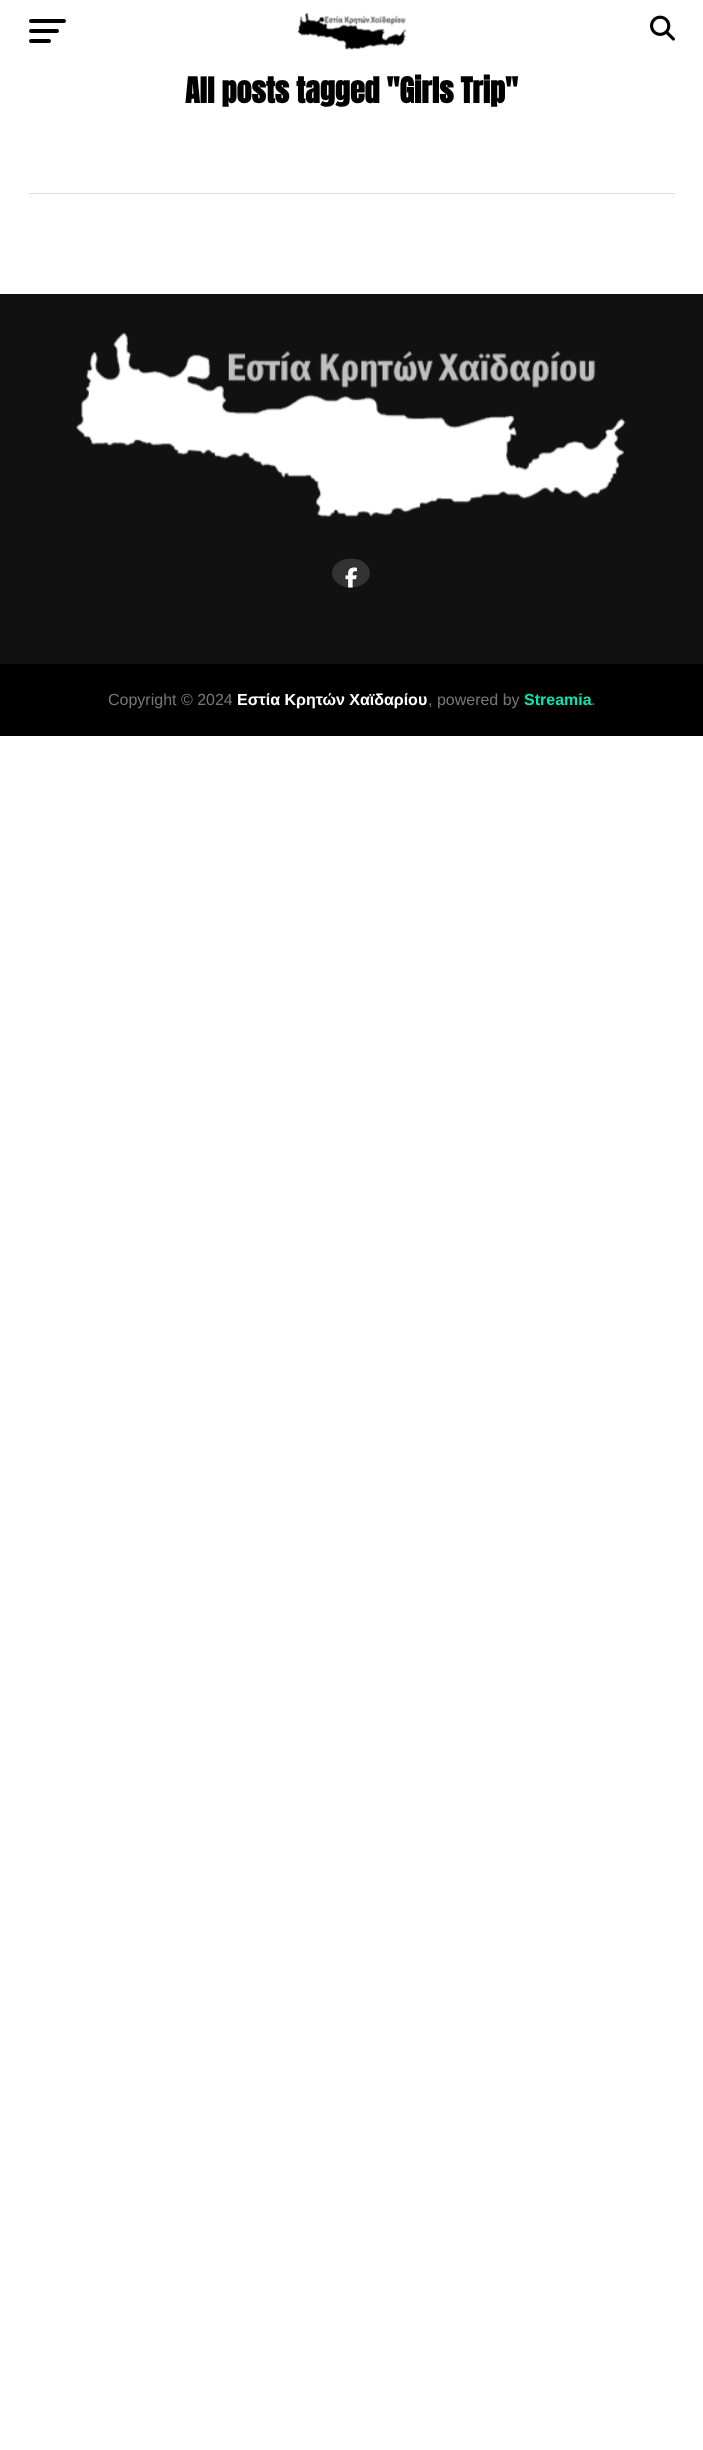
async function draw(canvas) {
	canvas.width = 703;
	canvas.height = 2450;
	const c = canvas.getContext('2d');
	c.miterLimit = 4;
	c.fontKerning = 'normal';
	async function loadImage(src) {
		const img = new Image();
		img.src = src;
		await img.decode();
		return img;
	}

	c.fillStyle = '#fff';
	c.fillRect(0, 0, 703, 2450);
	c.fillStyle = '#000';
	c.beginPath();
	c.roundRect(29, 19, 37, 4, 2);
	c.fill();
	c.beginPath();
	c.roundRect(29, 29, 30, 4, 2);
	c.fill();
	c.beginPath();
	c.roundRect(29, 39, 22, 4, 2);
	c.fill();
	c.drawImage(await loadImage('img1.png'), 297, 12, 110, 38);
	c.drawImage(await loadImage('img2.png'), 650, 15, 25, 26);
	c.font = 'bold 30px Anton';
	c.fillText('All posts tagged "Girls Trip"', 185, 103);
	c.fillStyle = '#ddd';
	c.fillRect(29, 193, 646, 1);
	c.fillStyle = '#111';
	c.fillRect(0, 294, 703, 370);
	c.drawImage(await loadImage('img3.png'), 76, 332, 550, 186);
	c.fillStyle = '#333';
	c.beginPath();
	c.ellipse(351, 573, 19, 14.5, 0, 0, 2 * Math.PI);
	c.fill();
	c.drawImage(await loadImage('img4.png'), 345, 567, 12, 21);
	c.fillStyle = '#000';
	c.fillRect(0, 664, 703, 72);
	c.font = '16px Liberation Sans';
	c.fillStyle = '#777';
	c.fillText('Copyright © 2024', 108, 705);
	c.font = 'bold 16px Liberation Sans';
	c.fillStyle = '#fff';
	c.fillText('Εστία Κρητών Χαϊδαρίου', 237, 705);
	c.font = '16px Liberation Sans';
	c.fillStyle = '#777';
	c.fillText(', powered by', 428, 705);
	c.font = 'bold 16px Liberation Sans';
	c.fillStyle = '#0be6af';
	c.fillText('Streamia', 524, 705);
	c.font = '16px Liberation Sans';
	c.fillStyle = '#777';
	c.fillText('.', 591, 705);
}

draw(document.querySelector('canvas'));
